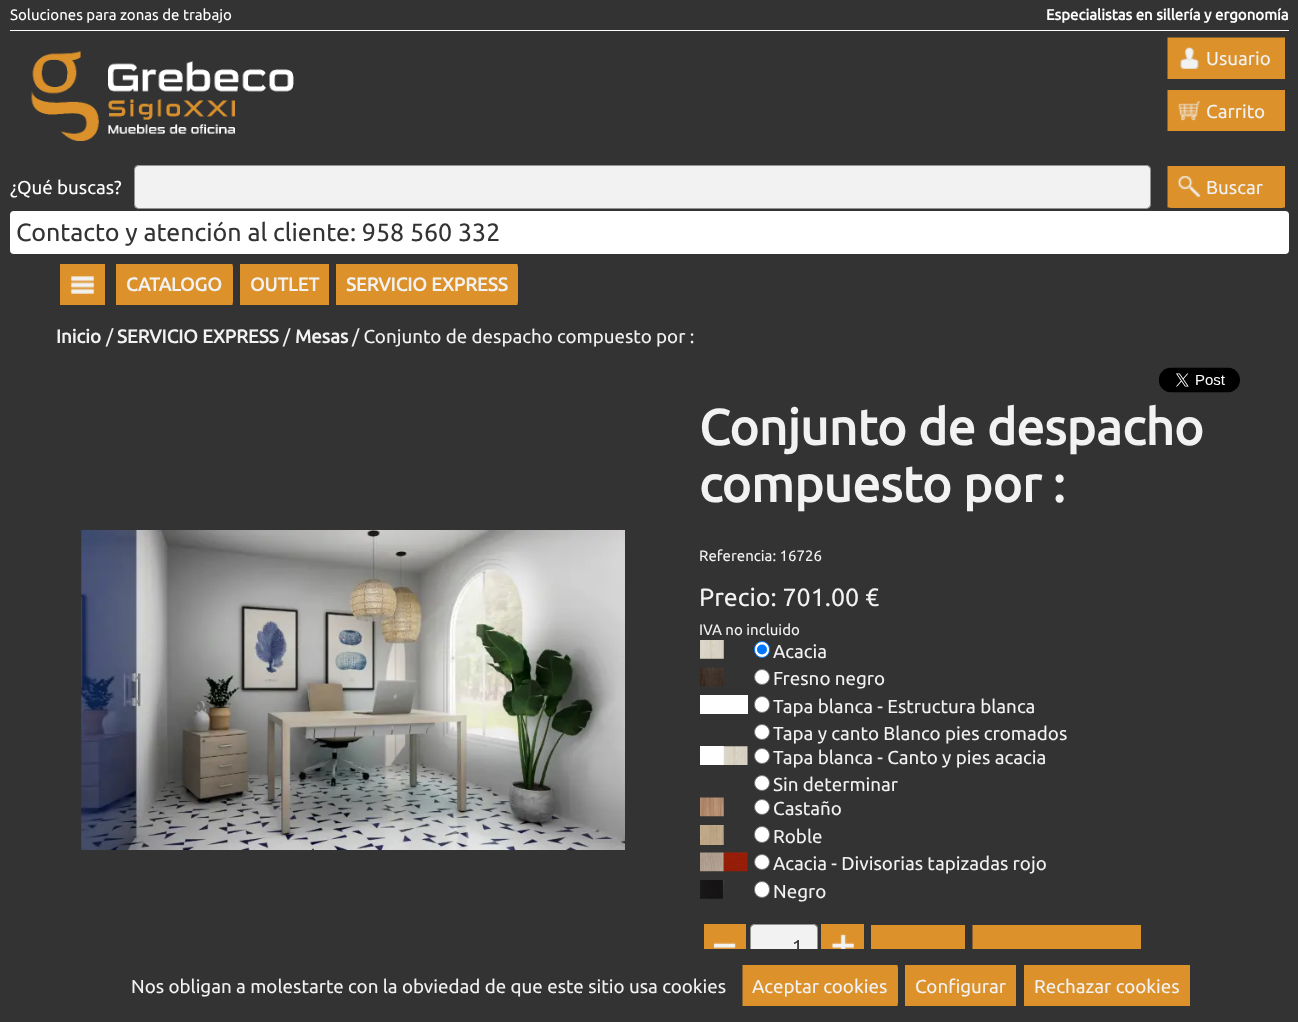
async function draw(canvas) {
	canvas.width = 1298;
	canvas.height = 1022;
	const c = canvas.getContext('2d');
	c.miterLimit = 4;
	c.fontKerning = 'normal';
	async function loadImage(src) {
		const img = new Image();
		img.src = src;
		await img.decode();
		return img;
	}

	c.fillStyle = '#333';
	c.fillRect(0, 0, 1298, 1022);
	c.font = '15px Ubuntu';
	c.fillStyle = '#fff';
	c.fillText('Soluciones para zonas de trabajo', 10, 20);
	c.font = 'bold 15px Ubuntu';
	c.fillText('Especialistas en sillería y ergonomía', 1046, 20);
	c.fillRect(10, 30, 1279, 1);
	c.drawImage(await loadImage('img1.png'), 31, 51, 263, 90);
	c.fillStyle = '#dc912a';
	c.fillRect(1177, 47, 98, 22);
	c.drawImage(await loadImage('img2.png'), 1179, 47, 20, 22);
	c.beginPath();
	c.moveTo(1172.5, 42.5);
	c.lineTo(1280, 42.5);
	c.lineTo(1280, 74);
	c.lineTo(1172.5, 74);
	c.closePath();
	c.strokeStyle = '#dc912a';
	c.lineWidth = 10;
	c.stroke();
	c.font = '18.75px Ubuntu';
	c.fillStyle = '#f2f2f2';
	c.fillText('Usuario', 1206, 65);
	c.fillStyle = '#dc912a';
	c.fillRect(1177, 100, 98, 21);
	c.drawImage(await loadImage('img3.png'), 1178, 101, 23, 20);
	c.beginPath();
	c.moveTo(1172.5, 95);
	c.lineTo(1280, 95);
	c.lineTo(1280, 126);
	c.lineTo(1172.5, 126);
	c.closePath();
	c.stroke();
	c.fillStyle = '#f2f2f2';
	c.fillText('Carrito', 1206, 118);
	c.fillStyle = '#fff';
	c.fillText('¿Qué buscas?', 10, 194);
	c.fillStyle = '#f2f2f2';
	c.beginPath();
	c.roundRect(134, 165, 1017, 44, 5);
	c.fill();
	c.beginPath();
	c.roundRect(134.5, 165.5, 1016, 43, 4.5);
	c.strokeStyle = '#33333380';
	c.lineWidth = 1;
	c.stroke();
	c.fillStyle = '#dc912a';
	c.beginPath();
	c.roundRect(1168, 166, 117, 42, 4);
	c.fill();
	c.drawImage(await loadImage('img4.png'), 1177, 176, 24, 22);
	c.beginPath();
	c.moveTo(1172.5, 171);
	c.lineTo(1280, 171);
	c.lineTo(1280, 202.5);
	c.lineTo(1172.5, 202.5);
	c.closePath();
	c.strokeStyle = '#dc912a';
	c.lineWidth = 10;
	c.stroke();
	c.fillStyle = '#f2f2f2';
	c.fillText('Buscar', 1206, 194);
	c.fillStyle = '#fff';
	c.beginPath();
	c.roundRect(10, 211, 1279, 43, 4);
	c.fill();
	c.font = '25px Ubuntu';
	c.fillStyle = '#333';
	c.fillText('Contacto y atención al cliente: 958 560 332', 16, 241);
	c.fillStyle = '#dc912a';
	c.fillRect(70, 274, 25, 21);
	c.drawImage(await loadImage('img5.png'), 70, 276, 25, 18);
	c.beginPath();
	c.moveTo(65, 269);
	c.lineTo(100, 269);
	c.lineTo(100, 300);
	c.lineTo(65, 300);
	c.closePath();
	c.stroke();
	c.beginPath();
	c.roundRect(116, 264, 117, 41, 4);
	c.fill();
	c.beginPath();
	c.moveTo(121, 269);
	c.lineTo(227.5, 269);
	c.lineTo(227.5, 300);
	c.lineTo(121, 300);
	c.closePath();
	c.stroke();
	c.font = 'bold 18.75px Ubuntu';
	c.fillStyle = '#f2f2f2';
	c.fillText('CATALOGO', 126, 291);
	c.fillStyle = '#dc912a';
	c.fillRect(250, 274, 69, 21);
	c.beginPath();
	c.moveTo(245, 269);
	c.lineTo(324, 269);
	c.lineTo(324, 300);
	c.lineTo(245, 300);
	c.closePath();
	c.stroke();
	c.fillStyle = '#f2f2f2';
	c.fillText('OUTLET', 250, 291);
	c.fillStyle = '#dc912a';
	c.beginPath();
	c.roundRect(336, 264, 182, 41, 4);
	c.fill();
	c.beginPath();
	c.moveTo(341, 269);
	c.lineTo(512.5, 269);
	c.lineTo(512.5, 300);
	c.lineTo(341, 300);
	c.closePath();
	c.stroke();
	c.fillStyle = '#f2f2f2';
	c.fillText('SERVICIO EXPRESS', 346, 291);
	c.fillText('Inicio', 56, 343);
	c.font = '18.75px Ubuntu';
	c.fillText('/', 106, 343);
	c.font = 'bold 18.75px Ubuntu';
	c.fillText('SERVICIO EXPRESS', 117, 343);
	c.font = '18.75px Ubuntu';
	c.fillText('/', 283, 343);
	c.font = 'bold 18.75px Ubuntu';
	c.fillText('Mesas', 295, 343);
	c.font = '18.75px Ubuntu';
	c.fillText('/ Conjunto de despacho compuesto por :', 352, 343);
	c.drawImage(await loadImage('img6.png'), 1159, 367, 81, 26);
	c.drawImage(await loadImage('img7.png'), 81, 530, 544, 320);
	c.font = 'bold 50px Ubuntu';
	c.fillText('Conjunto de despacho', 699, 445);
	c.fillText('compuesto por :', 699, 502);
	c.font = '15px Ubuntu';
	c.fillText('Referencia: 16726', 699, 561);
	c.font = '25px Ubuntu';
	c.fillText('Precio: 701.00 €', 699, 606);
	c.font = '15px Ubuntu';
	c.fillText('IVA no incluido', 699, 635);
	c.drawImage(await loadImage('img8.png'), 700, 640, 24, 19);
	c.fillStyle = '#fff';
	c.beginPath();
	c.roundRect(754.5, 641.5, 15, 16, 7.5);
	c.fill();
	c.strokeStyle = '#0075ff';
	c.lineWidth = 1;
	c.stroke();
	c.fillStyle = '#0075ff';
	c.beginPath();
	c.arc(762, 649.5, 5, 0, 2 * Math.PI);
	c.fill();
	c.font = '18.75px Ubuntu';
	c.fillStyle = '#f2f2f2';
	c.fillText('Acacia', 773, 658);
	c.drawImage(await loadImage('img9.png'), 700, 667, 24, 20);
	c.fillStyle = '#fff';
	c.beginPath();
	c.arc(762, 677, 7.5, 0, 2 * Math.PI);
	c.fill();
	c.strokeStyle = '#767676';
	c.stroke();
	c.fillStyle = '#f2f2f2';
	c.fillText('Fresno negro', 773, 685);
	c.fillStyle = '#fff';
	c.fillRect(700, 695, 48, 19);
	c.beginPath();
	c.roundRect(754.5, 696.5, 15, 16, 7.5);
	c.fill();
	c.stroke();
	c.fillStyle = '#f2f2f2';
	c.fillText('Tapa blanca - Estructura blanca', 773, 713);
	c.fillStyle = '#fff';
	c.beginPath();
	c.arc(762, 732, 7.5, 0, 2 * Math.PI);
	c.fill();
	c.stroke();
	c.fillStyle = '#f2f2f2';
	c.fillText('Tapa y canto Blanco pies cromados', 773, 740);
	c.fillStyle = '#fff';
	c.fillRect(700, 746, 24, 19);
	c.drawImage(await loadImage('img10.png'), 723, 746, 25, 19);
	c.beginPath();
	c.arc(762, 756, 7.5, 0, 2 * Math.PI);
	c.fill();
	c.stroke();
	c.fillStyle = '#f2f2f2';
	c.fillText('Tapa blanca - Canto y pies acacia', 773, 764);
	c.fillStyle = '#fff';
	c.beginPath();
	c.arc(762, 783, 7.5, 0, 2 * Math.PI);
	c.fill();
	c.stroke();
	c.fillStyle = '#f2f2f2';
	c.fillText('Sin determinar', 773, 791);
	c.drawImage(await loadImage('img11.png'), 700, 797, 24, 20);
	c.fillStyle = '#fff';
	c.beginPath();
	c.arc(762, 807, 7.5, 0, 2 * Math.PI);
	c.fill();
	c.stroke();
	c.fillStyle = '#f2f2f2';
	c.fillText('Castaño', 773, 815);
	c.drawImage(await loadImage('img12.png'), 700, 825, 24, 20);
	c.fillStyle = '#fff';
	c.beginPath();
	c.roundRect(754.5, 826.5, 15, 16, 7.5);
	c.fill();
	c.stroke();
	c.fillStyle = '#f2f2f2';
	c.fillText('Roble', 773, 843);
	c.drawImage(await loadImage('img13.png'), 700, 852, 24, 20);
	c.drawImage(await loadImage('img14.png'), 723, 852, 25, 20);
	c.fillStyle = '#fff';
	c.beginPath();
	c.arc(762, 862, 7.5, 0, 2 * Math.PI);
	c.fill();
	c.stroke();
	c.fillStyle = '#f2f2f2';
	c.fillText('Acacia - Divisorias tapizadas rojo', 773, 870);
	c.drawImage(await loadImage('img15.png'), 700, 880, 24, 19);
	c.fillStyle = '#fff';
	c.beginPath();
	c.roundRect(754.5, 881.5, 15, 16, 7.5);
	c.fill();
	c.stroke();
	c.fillStyle = '#f2f2f2';
	c.fillText('Negro', 773, 898);
	c.fillStyle = '#dc912a';
	c.fillRect(714, 934, 22, 15);
	c.drawImage(await loadImage('img16.png'), 714, 942, 22, 7);
	c.beginPath();
	c.moveTo(709, 929);
	c.lineTo(741, 929);
	c.lineTo(741, 961);
	c.lineTo(709, 961);
	c.closePath();
	c.strokeStyle = '#dc912a';
	c.lineWidth = 10;
	c.stroke();
	c.fillStyle = '#f2f2f2';
	c.beginPath();
	c.roundRect(750, 924, 68, 45, 5);
	c.fill();
	c.beginPath();
	c.roundRect(750.5, 924.5, 67, 44, 4.5);
	c.strokeStyle = '#33333380';
	c.lineWidth = 1;
	c.stroke();
	c.fillStyle = '#333';
	c.fillText('1', 792, 953);
	c.fillStyle = '#dc912a';
	c.fillRect(831, 934, 23, 15);
	c.drawImage(await loadImage('img17.png'), 831, 934, 23, 15);
	c.beginPath();
	c.moveTo(826, 929);
	c.lineTo(859, 929);
	c.lineTo(859, 961);
	c.lineTo(826, 961);
	c.closePath();
	c.strokeStyle = '#dc912a';
	c.lineWidth = 10;
	c.stroke();
	c.fillRect(881, 935, 74, 14);
	c.beginPath();
	c.moveTo(876, 930);
	c.lineTo(960, 930);
	c.lineTo(960, 961);
	c.lineTo(876, 961);
	c.closePath();
	c.stroke();
	c.fillRect(982, 935, 149, 14);
	c.beginPath();
	c.moveTo(977.5, 930);
	c.lineTo(1136, 930);
	c.lineTo(1136, 961);
	c.lineTo(977.5, 961);
	c.closePath();
	c.stroke();
	c.fillStyle = '#333';
	c.fillRect(704, 949, 437, 20);
	c.fillStyle = '#f2f2f2';
	c.fillText('Nos obligan a molestarte con la obviedad de que este sitio usa cookies', 131, 993);
	c.fillStyle = '#dc912a';
	c.beginPath();
	c.roundRect(743, 965, 155, 41, 4);
	c.fill();
	c.beginPath();
	c.moveTo(747.5, 970);
	c.lineTo(892.5, 970);
	c.lineTo(892.5, 1001);
	c.lineTo(747.5, 1001);
	c.closePath();
	c.stroke();
	c.fillStyle = '#f2f2f2';
	c.fillText('Aceptar cookies', 752, 993);
	c.fillStyle = '#dc912a';
	c.fillRect(915, 975, 91, 21);
	c.beginPath();
	c.moveTo(910, 970);
	c.lineTo(1011, 970);
	c.lineTo(1011, 1001);
	c.lineTo(910, 1001);
	c.closePath();
	c.stroke();
	c.fillStyle = '#f2f2f2';
	c.fillText('Configurar', 915, 993);
	c.fillStyle = '#dc912a';
	c.fillRect(1034, 975, 146, 21);
	c.beginPath();
	c.moveTo(1029, 970);
	c.lineTo(1185, 970);
	c.lineTo(1185, 1001);
	c.lineTo(1029, 1001);
	c.closePath();
	c.stroke();
	c.fillStyle = '#f2f2f2';
	c.fillText('Rechazar cookies', 1034, 993);
}

draw(document.querySelector('canvas'));
